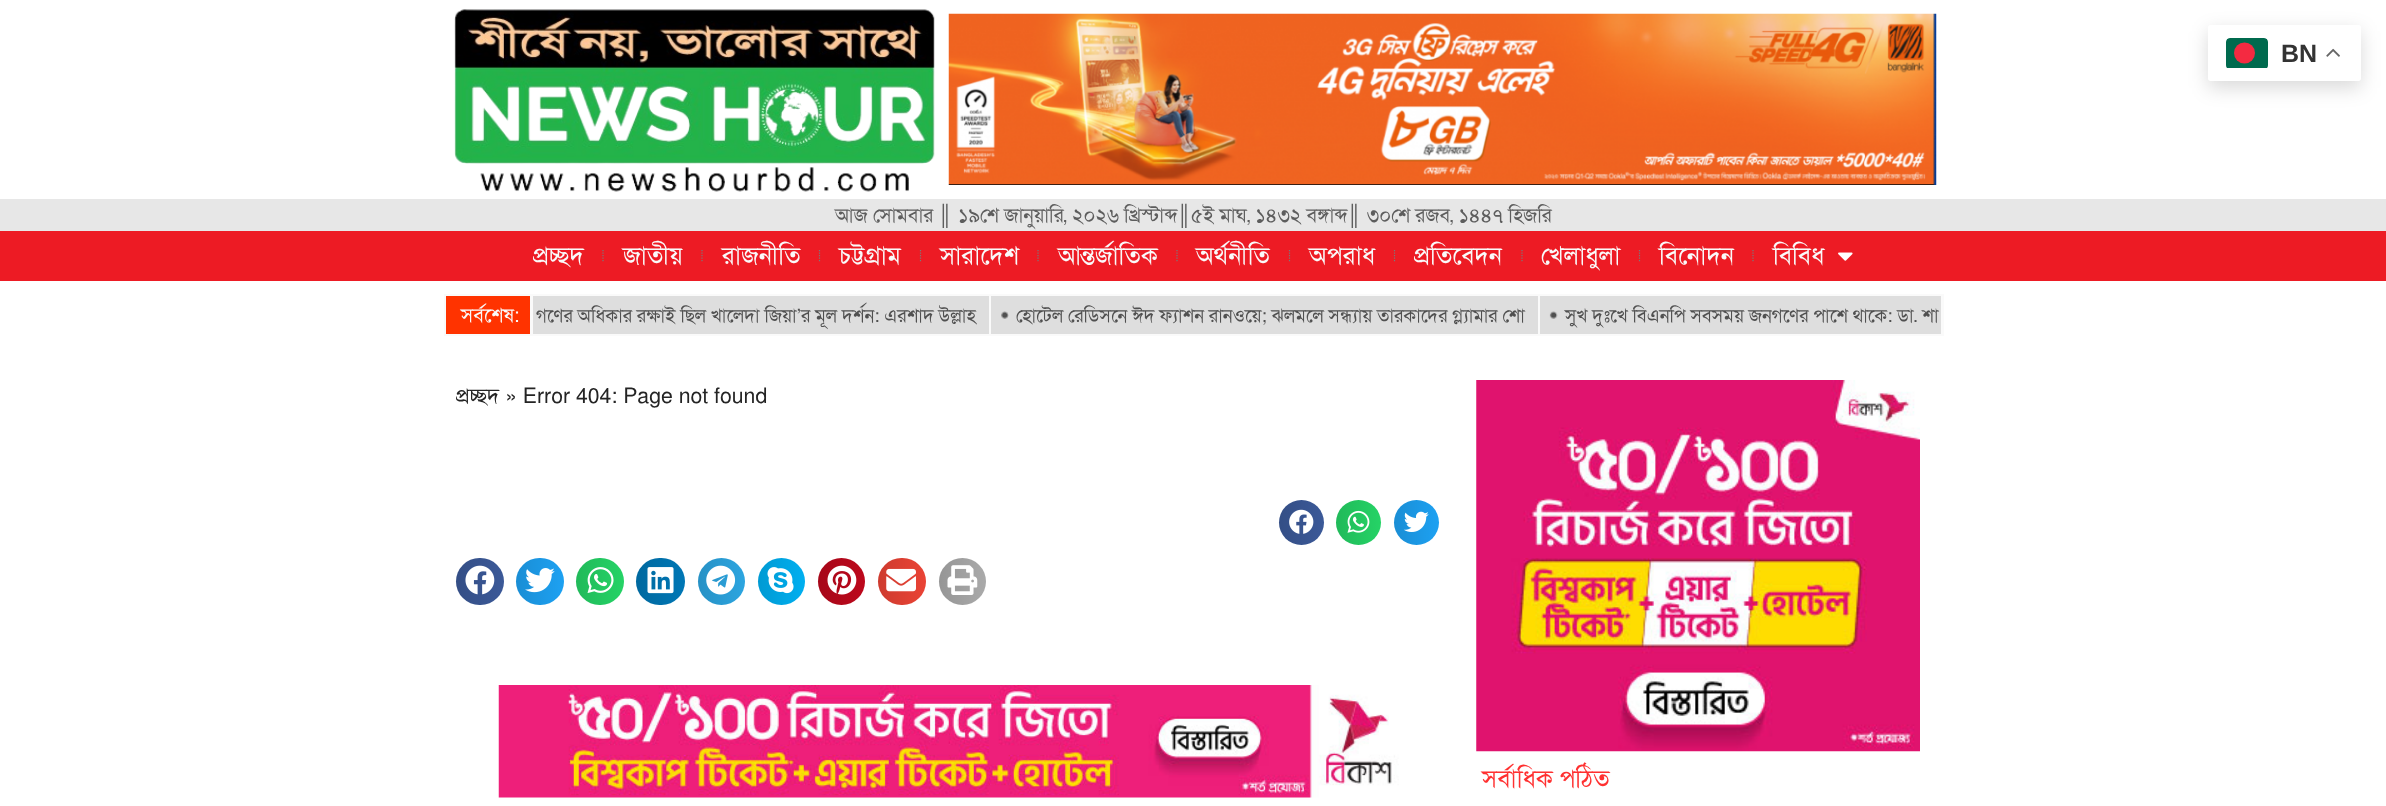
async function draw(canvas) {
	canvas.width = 2386;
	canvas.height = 806;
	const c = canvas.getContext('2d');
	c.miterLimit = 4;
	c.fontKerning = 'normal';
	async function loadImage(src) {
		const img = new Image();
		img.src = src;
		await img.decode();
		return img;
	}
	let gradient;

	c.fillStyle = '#fff';
	c.fillRect(0, 0, 2386, 806);
	c.save();
	c.beginPath();
	c.moveTo(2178, 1);
	c.lineTo(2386, 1);
	c.lineTo(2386, 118);
	c.lineTo(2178, 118);
	c.closePath();
	c.moveTo(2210.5, 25);
	c.lineTo(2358.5, 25);
	c.bezierCurveTo(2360, 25, 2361, 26, 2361, 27.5);
	c.lineTo(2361, 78.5);
	c.bezierCurveTo(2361, 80, 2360, 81, 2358.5, 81);
	c.lineTo(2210.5, 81);
	c.bezierCurveTo(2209, 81, 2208, 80, 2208, 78.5);
	c.lineTo(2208, 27.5);
	c.bezierCurveTo(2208, 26, 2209, 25, 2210.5, 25);
	c.closePath();
	c.clip('evenodd');
	c.fillStyle = '#00000026';
	c.filter = 'blur(9.5px)';
	c.beginPath();
	c.roundRect(2208, 31, 153, 57, 2.5);
	c.fill();
	c.filter = 'none';
	c.restore();
	c.save();
	c.beginPath();
	c.roundRect(2226, 38, 42, 31, 4);
	c.clip();
	c.fillStyle = '#006a4e';
	c.beginPath();
	c.roundRect(2226, 38, 42, 30, [4, 4, 0, 0]);
	c.fill();
	c.restore();
	c.fillStyle = '#f42a41';
	c.beginPath();
	c.arc(2244.5, 53, 10.5, 0, 2 * Math.PI);
	c.fill();
	c.font = 'bold 25px Liberation Sans';
	c.fillStyle = '#333';
	c.fillText('BN', 2281, 62);
	c.drawImage(await loadImage('img1.png'), 2326, 48, 14, 9);
	c.drawImage(await loadImage('img2.png'), 454, 9, 481, 183);
	c.drawImage(await loadImage('img3.png'), 948, 13, 989, 172);
	c.fillStyle = '#e7e7e7';
	c.fillRect(0, 199, 2386, 32);
	c.font = '20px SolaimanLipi';
	c.fillStyle = '#5d5d5d';
	c.fillText('আজ সোমবার', 835, 222);
	c.font = '20px Liberation Sans';
	c.fillText('║', 938, 222);
	c.font = '20px SolaimanLipi';
	c.fillText('১৯শে জানুয়ারি, ২০২৬ খ্রিস্টাব্দ', 958, 222);
	c.font = '20px Liberation Sans';
	c.fillText('║', 1177, 222);
	c.font = '20px SolaimanLipi';
	c.fillText('৫ই মাঘ, ১৪৩২ বঙ্গাব্দ', 1191, 222);
	c.font = '20px Liberation Sans';
	c.fillText('║', 1347, 222);
	c.font = '20px SolaimanLipi';
	c.fillText('৩০শে রজব, ১৪৪৭ হিজরি', 1367, 222);
	c.fillStyle = '#ed1b24';
	c.fillRect(0, 231, 2386, 50);
	c.font = '25px "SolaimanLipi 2"';
	c.fillStyle = '#fafafa';
	c.fillText('প্রচ্ছদ', 533, 264);
	c.beginPath();
	c.moveTo(603, 250);
	c.lineTo(603, 262.5);
	c.strokeStyle = '#7a7a7a';
	c.lineWidth = 1.2;
	c.setLineDash([1.25, 1.25]);
	c.stroke();
	c.fillText('জাতীয়', 623, 264);
	c.beginPath();
	c.moveTo(702, 250);
	c.lineTo(702, 262.5);
	c.stroke();
	c.fillText('রাজনীতি', 722, 264);
	c.beginPath();
	c.moveTo(819.5, 250);
	c.lineTo(819.5, 262.5);
	c.stroke();
	c.fillText('চট্টগ্রাম', 839, 264);
	c.beginPath();
	c.moveTo(920.5, 250);
	c.lineTo(920.5, 262.5);
	c.stroke();
	c.fillText('সারাদেশ', 940, 264);
	c.beginPath();
	c.moveTo(1038, 250);
	c.lineTo(1038, 262.5);
	c.stroke();
	c.fillText('আন্তর্জাতিক', 1058, 264);
	c.beginPath();
	c.moveTo(1177, 250);
	c.lineTo(1177, 262.5);
	c.stroke();
	c.fillText('অর্থনীতি', 1196, 264);
	c.beginPath();
	c.moveTo(1289.5, 250);
	c.lineTo(1289.5, 262.5);
	c.stroke();
	c.fillText('অপরাধ', 1309, 264);
	c.beginPath();
	c.moveTo(1394.5, 250);
	c.lineTo(1394.5, 262.5);
	c.stroke();
	c.fillText('প্রতিবেদন', 1414, 264);
	c.beginPath();
	c.moveTo(1522, 250);
	c.lineTo(1522, 262.5);
	c.stroke();
	c.fillText('খেলাধুলা', 1541, 264);
	c.beginPath();
	c.moveTo(1639.5, 250);
	c.lineTo(1639.5, 262.5);
	c.stroke();
	c.fillText('বিনোদন', 1659, 264);
	c.beginPath();
	c.moveTo(1753, 250);
	c.lineTo(1753, 262.5);
	c.stroke();
	c.fillText('বিবিধ', 1773, 264);
	c.drawImage(await loadImage('img4.png'), 1838, 252, 15, 9);
	c.fillRect(444, 294, 1500, 42);
	c.fillStyle = '#f30';
	c.fillRect(446, 296, 84, 38);
	c.font = '20px SolaimanLipi';
	c.fillStyle = '#fafafa';
	c.fillText('সর্বশেষ:', 461, 322);
	c.fillStyle = '#dedede';
	c.fillRect(533, 296, 456, 38);
	c.font = '18.75px SolaimanLipi';
	c.fillStyle = '#505050';
	c.fillText('গণের অধিকার রক্ষাই ছিল খালেদা জিয়া’র মূল দর্শন: এরশাদ উল্লাহ', 536, 322);
	c.fillStyle = '#dedede';
	c.fillRect(991, 296, 547, 38);
	c.drawImage(await loadImage('img5.png'), 1001, 311, 8, 8);
	c.fillStyle = '#505050';
	c.fillText('হোটেল রেডিসনে ঈদ ফ্যাশন রানওয়ে; ঝলমলে সন্ধ্যায় তারকাদের গ্ল্যামার শো', 1016, 322);
	c.fillStyle = '#dedede';
	c.fillRect(1540, 296, 401, 38);
	c.drawImage(await loadImage('img6.png'), 1549, 311, 9, 8);
	c.fillStyle = '#505050';
	c.fillText('সুখ দুঃখে বিএনপি সবসময় জনগণের পাশে থাকে: ডা. শা', 1565, 322);
	c.font = '21.25px "SolaimanLipi 2"';
	c.fillStyle = '#242424';
	c.fillText('প্রচ্ছদ » Error 404: Page not found', 456, 403);
	c.fillStyle = '#3b5998';
	c.beginPath();
	c.arc(1301.5, 522.5, 22.5, 0, 2 * Math.PI);
	c.fill();
	gradient = c.createLinearGradient(1279, 523, 1324, 523);
	gradient.addColorStop(0, '#0000001f');
	gradient.addColorStop(1, '#00000000');
	c.fillStyle = gradient;
	c.beginPath();
	c.arc(1301.5, 522.5, 22.5, 0, 2 * Math.PI);
	c.fill();
	c.drawImage(await loadImage('img7.png'), 1289, 509, 25, 25);
	c.fillStyle = '#25d366';
	c.beginPath();
	c.arc(1358.5, 522.5, 22.5, 0, 2 * Math.PI);
	c.fill();
	gradient = c.createLinearGradient(1336, 523, 1381, 523);
	gradient.addColorStop(0, '#0000001f');
	gradient.addColorStop(1, '#00000000');
	c.fillStyle = gradient;
	c.beginPath();
	c.arc(1358.5, 522.5, 22.5, 0, 2 * Math.PI);
	c.fill();
	c.drawImage(await loadImage('img8.png'), 1347, 510, 23, 23);
	c.fillStyle = '#1da1f2';
	c.beginPath();
	c.arc(1416.5, 522.5, 22.5, 0, 2 * Math.PI);
	c.fill();
	gradient = c.createLinearGradient(1394, 523, 1439, 523);
	gradient.addColorStop(0, '#0000001f');
	gradient.addColorStop(1, '#00000000');
	c.fillStyle = gradient;
	c.beginPath();
	c.arc(1416.5, 522.5, 22.5, 0, 2 * Math.PI);
	c.fill();
	c.drawImage(await loadImage('img9.png'), 1404, 511, 25, 21);
	c.fillStyle = '#3b5998';
	c.beginPath();
	c.roundRect(456, 558, 48, 47, 23.5);
	c.fill();
	gradient = c.createLinearGradient(456, 581, 504, 581);
	gradient.addColorStop(0, '#0000001f');
	gradient.addColorStop(1, '#00000000');
	c.fillStyle = gradient;
	c.beginPath();
	c.roundRect(456, 558, 48, 47, 23.5);
	c.fill();
	c.drawImage(await loadImage('img10.png'), 465, 565, 30, 30);
	c.fillStyle = '#1da1f2';
	c.beginPath();
	c.roundRect(516, 558, 48, 47, 23.5);
	c.fill();
	gradient = c.createLinearGradient(516, 581, 564, 581);
	gradient.addColorStop(0, '#0000001f');
	gradient.addColorStop(1, '#00000000');
	c.fillStyle = gradient;
	c.beginPath();
	c.roundRect(516, 558, 48, 47, 23.5);
	c.fill();
	c.drawImage(await loadImage('img11.png'), 525, 568, 30, 25);
	c.fillStyle = '#25d366';
	c.beginPath();
	c.roundRect(576, 558, 48, 47, 23.5);
	c.fill();
	gradient = c.createLinearGradient(576, 581, 624, 581);
	gradient.addColorStop(0, '#0000001f');
	gradient.addColorStop(1, '#00000000');
	c.fillStyle = gradient;
	c.beginPath();
	c.roundRect(576, 558, 48, 47, 23.5);
	c.fill();
	c.drawImage(await loadImage('img12.png'), 587, 567, 27, 26);
	c.fillStyle = '#0077b5';
	c.beginPath();
	c.roundRect(636, 558, 49, 47, 23.5);
	c.fill();
	gradient = c.createLinearGradient(636, 581, 685, 581);
	gradient.addColorStop(0, '#0000001f');
	gradient.addColorStop(1, '#00000000');
	c.fillStyle = gradient;
	c.beginPath();
	c.roundRect(636, 558, 49, 47, 23.5);
	c.fill();
	c.drawImage(await loadImage('img13.png'), 647, 567, 27, 27);
	c.fillStyle = '#2ca5e0';
	c.beginPath();
	c.arc(721.5, 581.5, 23.5, 0, 2 * Math.PI);
	c.fill();
	gradient = c.createLinearGradient(698, 581, 745, 581);
	gradient.addColorStop(0, '#0000001f');
	gradient.addColorStop(1, '#00000000');
	c.fillStyle = gradient;
	c.beginPath();
	c.arc(721.5, 581.5, 23.5, 0, 2 * Math.PI);
	c.fill();
	c.drawImage(await loadImage('img14.png'), 706, 565, 30, 30);
	c.fillStyle = '#00aff0';
	c.beginPath();
	c.arc(781.5, 581.5, 23.5, 0, 2 * Math.PI);
	c.fill();
	gradient = c.createLinearGradient(758, 581, 805, 581);
	gradient.addColorStop(0, '#0000001f');
	gradient.addColorStop(1, '#00000000');
	c.fillStyle = gradient;
	c.beginPath();
	c.arc(781.5, 581.5, 23.5, 0, 2 * Math.PI);
	c.fill();
	c.drawImage(await loadImage('img15.png'), 767, 567, 27, 27);
	c.fillStyle = '#bd081c';
	c.beginPath();
	c.arc(841.5, 581.5, 23.5, 0, 2 * Math.PI);
	c.fill();
	gradient = c.createLinearGradient(818, 581, 865, 581);
	gradient.addColorStop(0, '#0000001f');
	gradient.addColorStop(1, '#00000000');
	c.fillStyle = gradient;
	c.beginPath();
	c.arc(841.5, 581.5, 23.5, 0, 2 * Math.PI);
	c.fill();
	c.drawImage(await loadImage('img16.png'), 827, 565, 30, 30);
	c.fillStyle = '#ea4335';
	c.beginPath();
	c.roundRect(878, 558, 48, 47, 23.5);
	c.fill();
	gradient = c.createLinearGradient(878, 581, 926, 581);
	gradient.addColorStop(0, '#0000001f');
	gradient.addColorStop(1, '#00000000');
	c.fillStyle = gradient;
	c.beginPath();
	c.roundRect(878, 558, 48, 47, 23.5);
	c.fill();
	c.drawImage(await loadImage('img17.png'), 886, 568, 30, 24);
	c.fillStyle = '#aaa';
	c.beginPath();
	c.arc(962.5, 581.5, 23.5, 0, 2 * Math.PI);
	c.fill();
	gradient = c.createLinearGradient(939, 581, 986, 581);
	gradient.addColorStop(0, '#0000001f');
	gradient.addColorStop(1, '#00000000');
	c.fillStyle = gradient;
	c.beginPath();
	c.arc(962.5, 581.5, 23.5, 0, 2 * Math.PI);
	c.fill();
	c.drawImage(await loadImage('img18.png'), 947, 565, 31, 30);
	c.drawImage(await loadImage('img19.png'), 498, 685, 901, 113);
	c.drawImage(await loadImage('img20.png'), 1476, 380, 444, 372);
	c.font = '25px SolaimanLipi';
	c.fillStyle = '#ff3030';
	c.fillText('সর্বাধিক পঠিত', 1482, 787);
}

draw(document.querySelector('canvas'));
